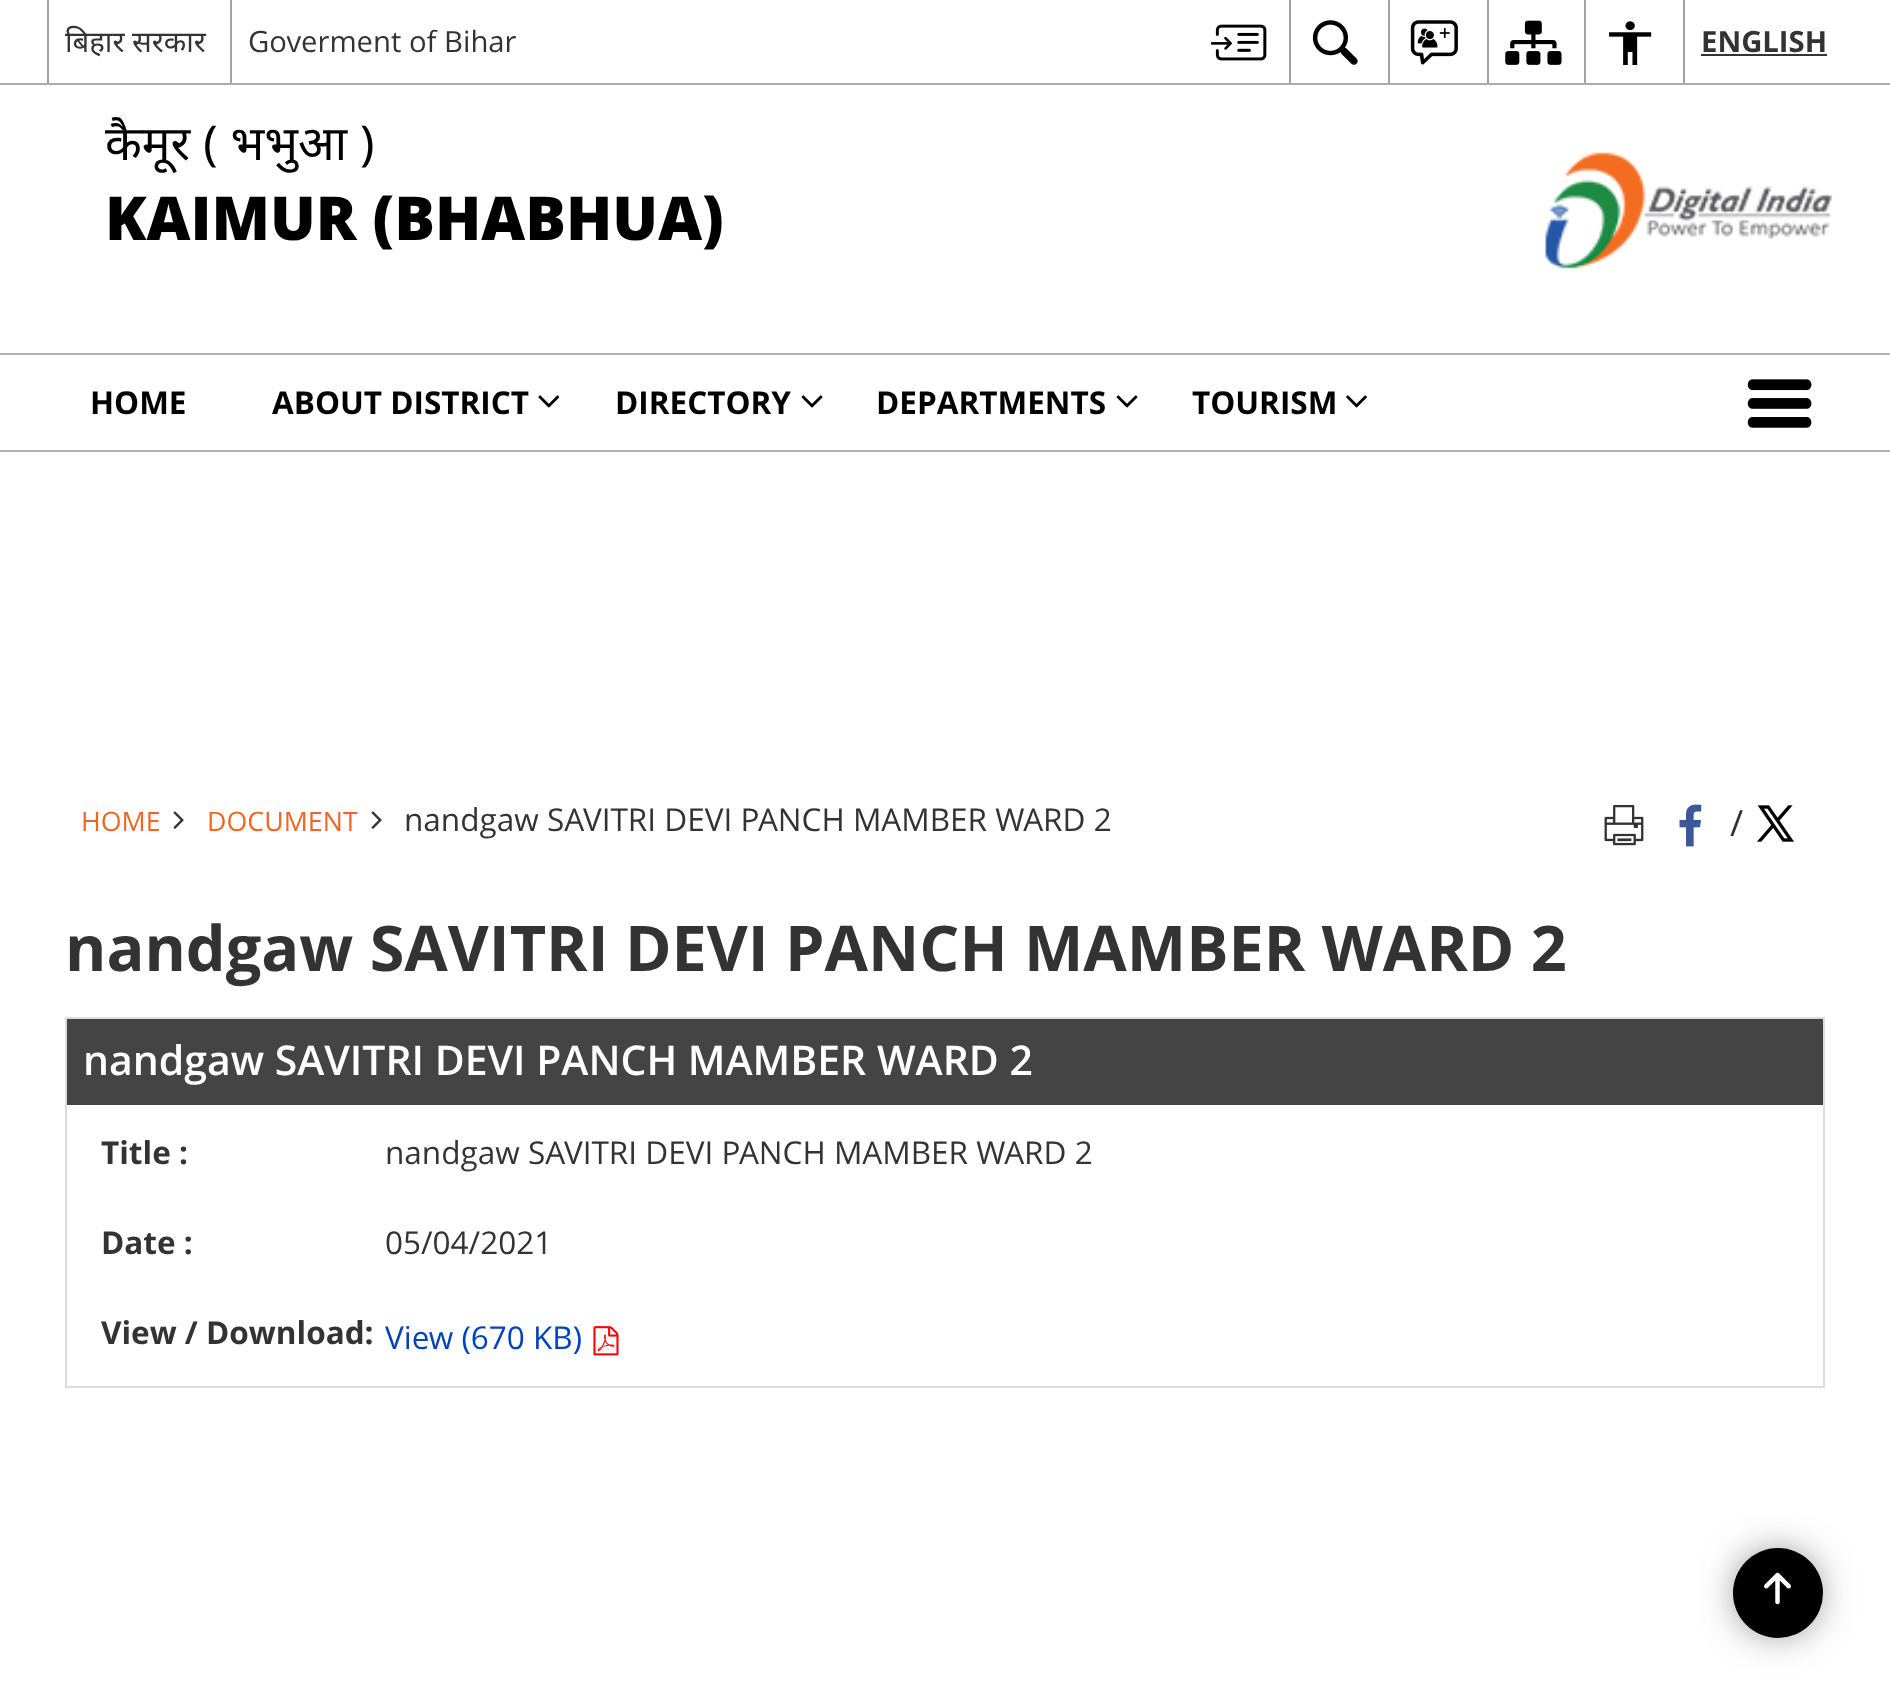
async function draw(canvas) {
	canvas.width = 1890;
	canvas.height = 1704;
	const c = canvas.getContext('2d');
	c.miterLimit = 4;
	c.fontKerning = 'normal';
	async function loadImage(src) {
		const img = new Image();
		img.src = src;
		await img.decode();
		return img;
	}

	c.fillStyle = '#fff';
	c.fillRect(0, 0, 1890, 1704);
	c.fillStyle = '#ababab';
	c.fillRect(0, 83, 1890, 2);
	c.fillStyle = '#a3a3a3';
	c.fillRect(47, 0, 2, 83);
	c.font = '29.25px Noto Sans';
	c.fillStyle = '#333';
	c.fillText('बिहार सरकार', 65, 52);
	c.fillStyle = '#a3a3a3';
	c.fillRect(230, 0, 2, 83);
	c.font = '29.25px Open Sans';
	c.fillStyle = '#333';
	c.fillText('Goverment of Bihar', 248, 52);
	c.drawImage(await loadImage('img1.png'), 1211, 24, 56, 37);
	c.fillStyle = '#a3a3a3';
	c.fillRect(1289, 0, 2, 83);
	c.drawImage(await loadImage('img2.png'), 1312, 20, 46, 45);
	c.fillRect(1388, 0, 2, 83);
	c.drawImage(await loadImage('img3.png'), 1410, 20, 48, 45);
	c.fillRect(1487, 0, 2, 83);
	c.drawImage(await loadImage('img4.png'), 1505, 20, 57, 45);
	c.fillRect(1584, 0, 2, 83);
	c.drawImage(await loadImage('img5.png'), 1609, 21, 43, 44);
	c.fillRect(1683, 0, 2, 83);
	c.font = 'bold 29.25px Open Sans';
	c.fillStyle = '#333';
	c.fillText('ENGLISH', 1701, 52);
	c.fillRect(1701, 54, 126, 2);
	c.wordSpacing = '0.5px';
	c.font = '48px Noto Sans';
	c.fillStyle = '#000';
	c.fillText('कैमूर ( भभुआ )', 105, 160);
	c.wordSpacing = '0px';
	c.font = '800 60.5px Open Sans';
	c.fillText('KAIMUR (BHABHUA)', 105, 240);
	c.drawImage(await loadImage('img6.png'), 1545, 152, 288, 117);
	c.fillStyle = '#b3b3b3';
	c.fillRect(0, 353, 1890, 2);
	c.fillRect(0, 450, 1890, 2);
	c.font = 'bold 31.5px Open Sans';
	c.fillStyle = '#000';
	c.fillText('HOME', 90, 414);
	c.fillText('ABOUT DISTRICT', 272, 414);
	c.drawImage(await loadImage('img7.png'), 538, 395, 22, 13);
	c.fillText('DIRECTORY', 615, 414);
	c.drawImage(await loadImage('img8.png'), 801, 395, 22, 13);
	c.fillText('DEPARTMENTS', 876, 414);
	c.drawImage(await loadImage('img8.png'), 1116, 395, 22, 13);
	c.fillText('TOURISM', 1192, 414);
	c.drawImage(await loadImage('img9.png'), 1346, 395, 21, 13);
	c.drawImage(await loadImage('img10.png'), 1747, 379, 65, 49);
	c.font = '26.75px Open Sans';
	c.fillStyle = '#f26522';
	c.fillText('HOME', 81, 831);
	c.drawImage(await loadImage('img11.png'), 173, 811, 11, 18);
	c.fillText('DOCUMENT', 207, 831);
	c.drawImage(await loadImage('img11.png'), 371, 811, 11, 18);
	c.font = '31.5px Open Sans';
	c.fillStyle = '#333';
	c.fillText('nandgaw SAVITRI DEVI PANCH MAMBER WARD 2', 404, 831);
	c.drawImage(await loadImage('img12.png'), 1604, 805, 40, 41);
	c.drawImage(await loadImage('img13.png'), 1679, 804, 23, 43);
	c.font = '36px Open Sans';
	c.fillText('/', 1730, 836);
	c.drawImage(await loadImage('img14.png'), 1757, 805, 37, 37);
	c.font = 'bold 63px Open Sans';
	c.fillText('nandgaw SAVITRI DEVI PANCH MAMBER WARD 2', 65, 971);
	for (const [x, y, w, h, color] of [
		[65, 1017, 1760, 2, '#ddd'],
		[1823, 1017, 2, 371, '#ddd'],
		[65, 1386, 1760, 2, '#ddd'],
		[65, 1017, 2, 371, '#ddd'],
		[67, 1019, 1756, 86, '#444'],
	]) {
		c.fillStyle = color;
		c.fillRect(x, y, w, h);
	}
	c.font = '600 40.95px Open Sans';
	c.fillStyle = '#fff';
	c.fillText('nandgaw SAVITRI DEVI PANCH MAMBER WARD 2', 83, 1075);
	c.font = 'bold 31.5px Open Sans';
	c.fillStyle = '#333';
	c.fillText('Title :', 101, 1164);
	c.font = '31.5px Open Sans';
	c.fillText('nandgaw SAVITRI DEVI PANCH MAMBER WARD 2', 385, 1164);
	c.font = 'bold 31.5px Open Sans';
	c.fillText('Date :', 101, 1254);
	c.font = '31.5px Open Sans';
	c.fillText('05/04/2021', 385, 1254);
	c.font = 'bold 31.5px Open Sans';
	c.fillText('View / Download:', 101, 1344);
	c.font = '31.5px Open Sans';
	c.fillStyle = '#0042bf';
	c.fillText('View (670 KB)', 385, 1349);
	c.drawImage(await loadImage('img15.png'), 593, 1326, 26, 30);
	c.fillStyle = '#3c3c3c';
	c.filter = 'blur(21.5px)';
	c.beginPath();
	c.roundRect(1744, 1559, 67, 68, 33.5);
	c.fill();
	c.filter = 'none';
	c.fillStyle = '#000';
	c.beginPath();
	c.arc(1778, 1593, 45, 0, 2 * Math.PI);
	c.fill();
	c.drawImage(await loadImage('img16.png'), 1764, 1572, 27, 33);
}

draw(document.querySelector('canvas'));
